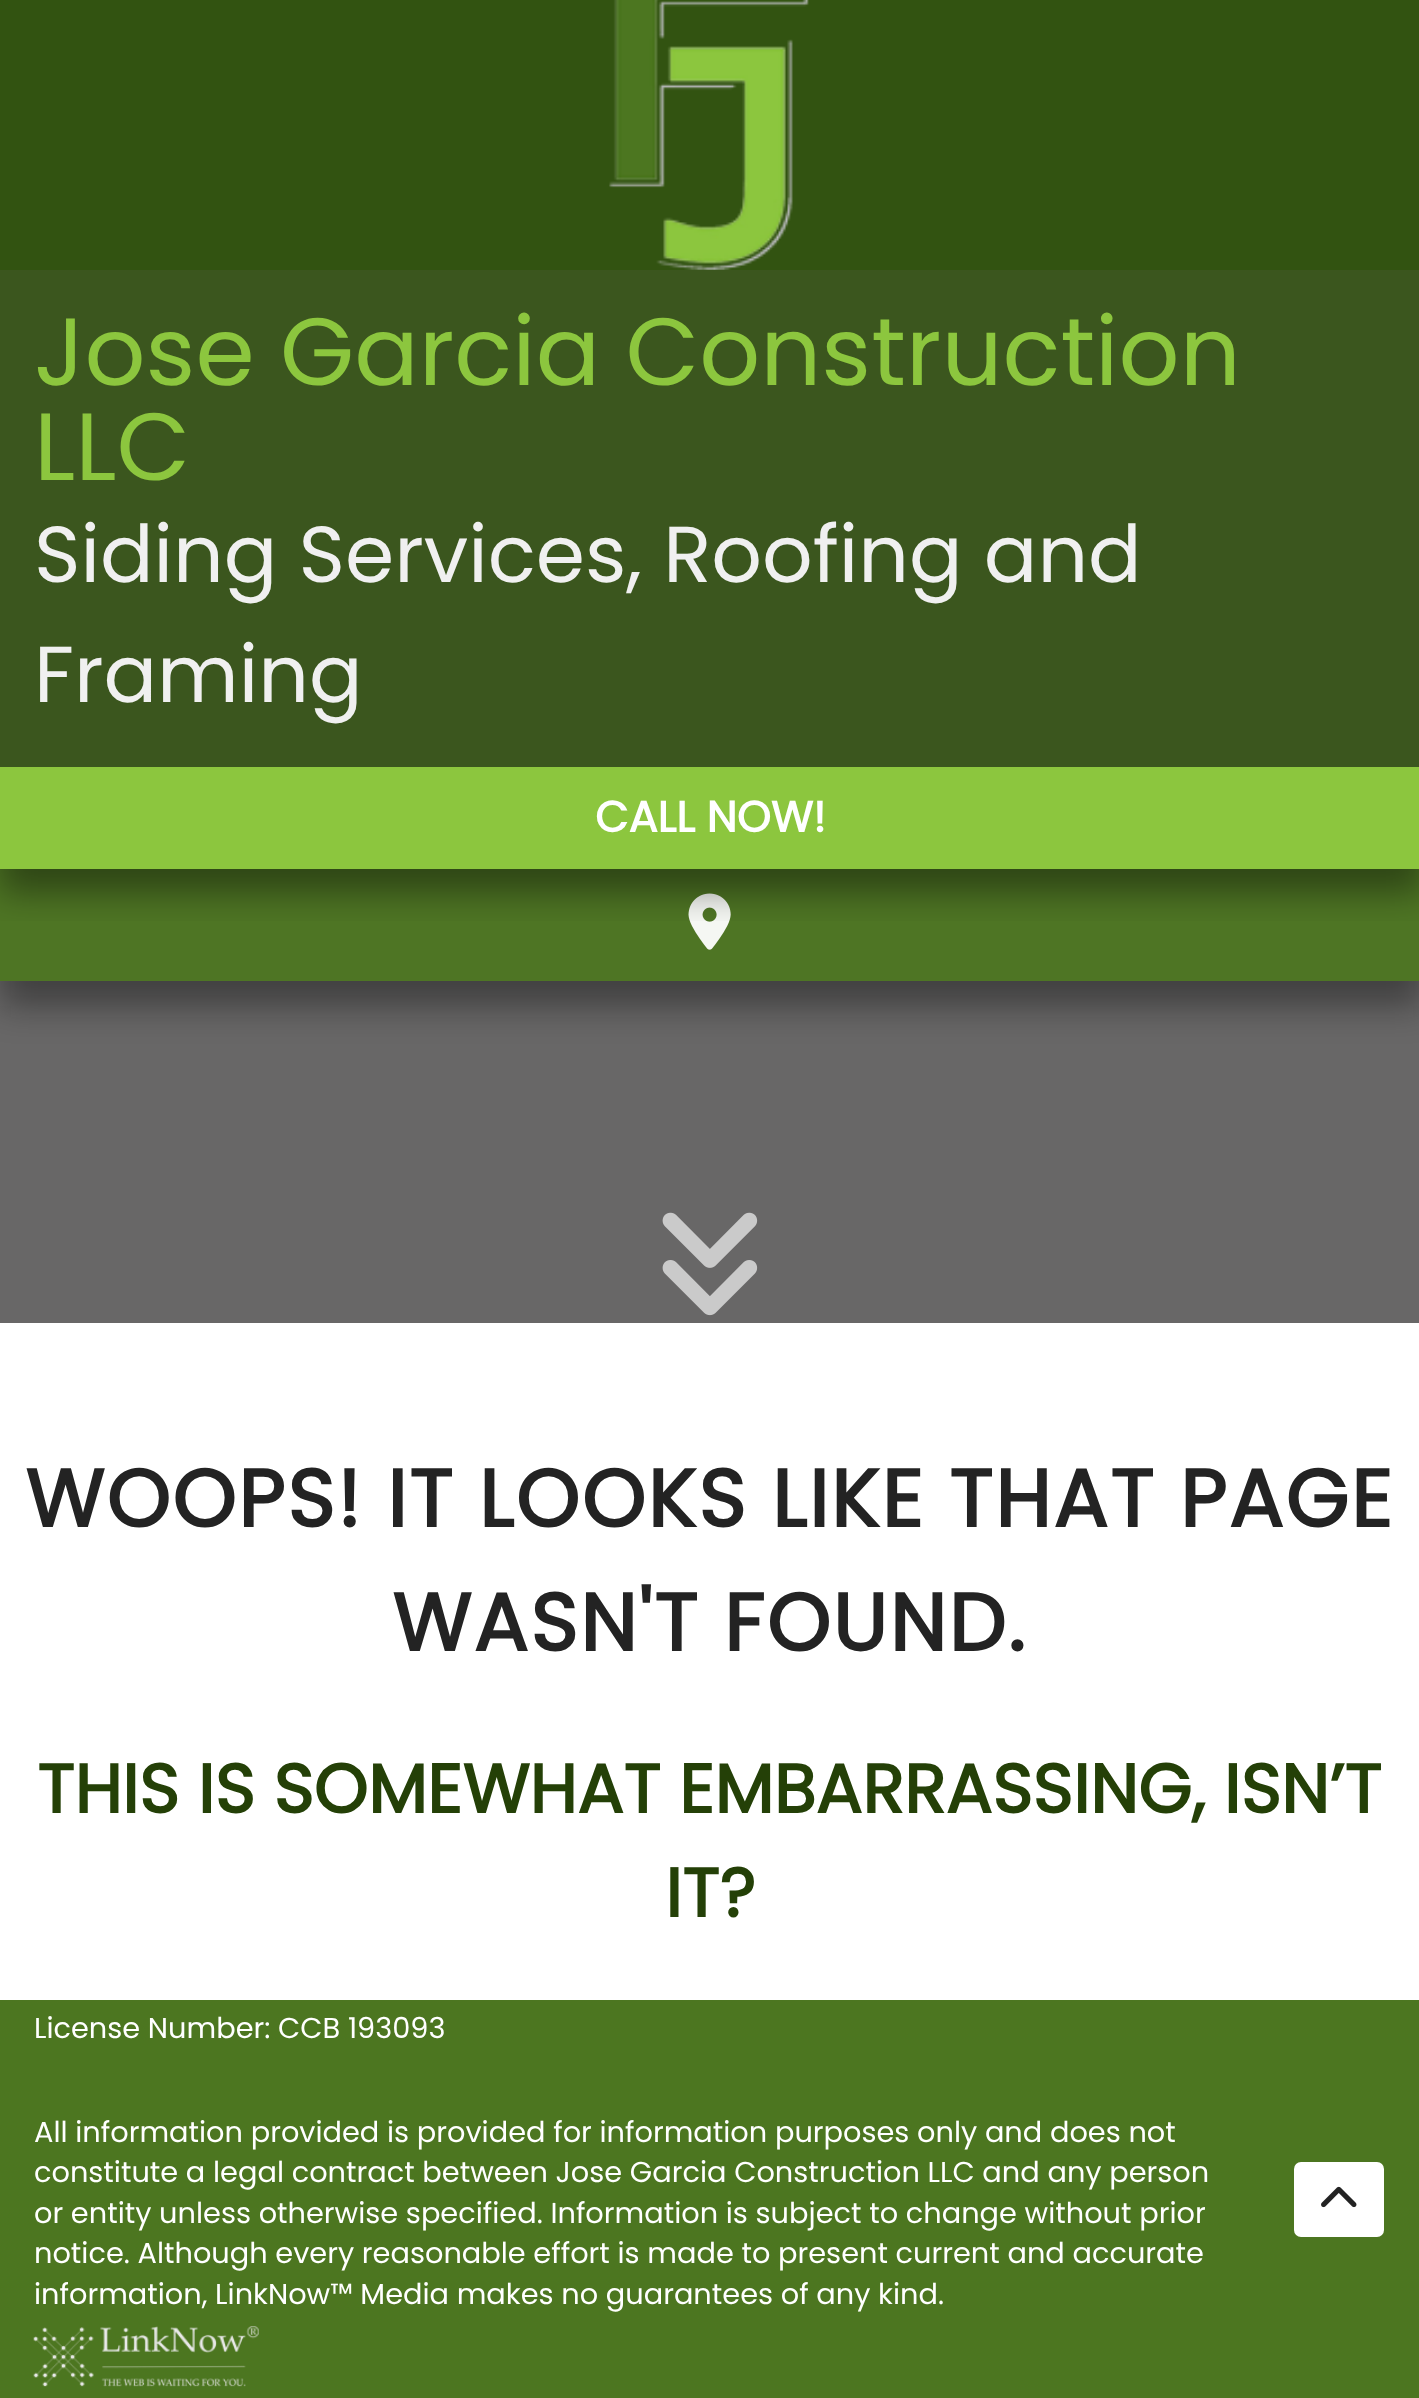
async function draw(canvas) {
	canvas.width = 1419;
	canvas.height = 2398;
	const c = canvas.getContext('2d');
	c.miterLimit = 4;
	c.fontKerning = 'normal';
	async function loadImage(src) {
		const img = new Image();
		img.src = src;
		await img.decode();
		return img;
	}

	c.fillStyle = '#fff';
	c.fillRect(0, 0, 1419, 2398);
	c.fillStyle = '#686767';
	c.fillRect(0, 270, 1419, 1053);
	c.fillStyle = '#06060666';
	c.filter = 'blur(17px)';
	c.beginPath();
	c.rect(0, 889, 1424, 117);
	c.fill();
	c.filter = 'none';
	c.fillStyle = '#4e7524';
	c.fillRect(0, 869, 1419, 112);
	c.drawImage(await loadImage('img2.png'), 688, 893, 43, 57);
	c.save();
	c.beginPath();
	c.rect(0, 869, 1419, 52);
	c.clip();
	c.fillStyle = '#00000066';
	c.filter = 'blur(17px)';
	c.beginPath();
	c.rect(0, -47, 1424, 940);
	c.fill();
	c.filter = 'none';
	c.restore();
	c.fillStyle = '#30520dcc';
	c.fillRect(0, 270, 1419, 497);
	c.fillStyle = '#325311';
	c.fillRect(0, 0, 1419, 270);
	c.drawImage(await loadImage('img1.png'), 609, 0, 200, 270);
	c.font = '95.4px Poppins';
	c.fillStyle = '#8cc63e';
	c.fillText('Jose Garcia Construction', 34, 385);
	c.fillText('LLC', 34, 480);
	c.font = '79.25px Poppins';
	c.fillStyle = '#f0f0f0';
	c.fillText('Siding Services, Roofing and', 34, 582);
	c.fillText('Framing', 34, 702);
	c.fillStyle = '#8cc63e';
	c.fillRect(0, 767, 1419, 102);
	c.font = 'bold 43.25px Poppins';
	c.fillStyle = '#fff';
	c.fillText('CALL NOW!', 595, 832);
	c.drawImage(await loadImage('img3.png'), 662, 1212, 96, 104);
	c.letterSpacing = '2.15px';
	c.font = 'bold 81px Poppins';
	c.fillStyle = '#232323';
	c.fillText('WOOPS! IT LOOKS LIKE THAT PAGE', 25, 1527);
	c.fillText('WASN\'T FOUND.', 392, 1651);
	c.letterSpacing = '0px';
	c.font = 'bold 68.8px Poppins';
	c.fillStyle = '#244007';
	c.fillText('THIS IS SOMEWHAT EMBARRASSING, ISN’T', 37, 1813);
	c.fillText('IT?', 665, 1917);
	c.fillStyle = '#4c7620';
	c.fillRect(0, 2000, 1419, 398);
	c.font = '28.8px Poppins';
	c.fillStyle = '#fff';
	for (const [text, x, y] of [
		['License Number: CCB 193093', 34, 2038],
		['All information provided is provided for information purposes only and does not', 34, 2142],
		['constitute a legal contract between Jose Garcia Construction LLC and any person', 34, 2182],
		['or entity unless otherwise specified. Information is subject to change without prior', 34, 2223],
		['notice. Although every reasonable effort is made to present current and accurate', 34, 2263],
		['information, LinkNow™ Media makes no guarantees of any kind.', 34, 2304],
	]) {
		c.fillText(text, x, y);
	}
	c.drawImage(await loadImage('img4.png'), 33, 2326, 226, 61);
	c.beginPath();
	c.roundRect(1294, 2162, 90, 75, 7);
	c.fill();
	c.drawImage(await loadImage('img5.png'), 1321, 2186, 36, 22);
}

draw(document.querySelector('canvas'));
